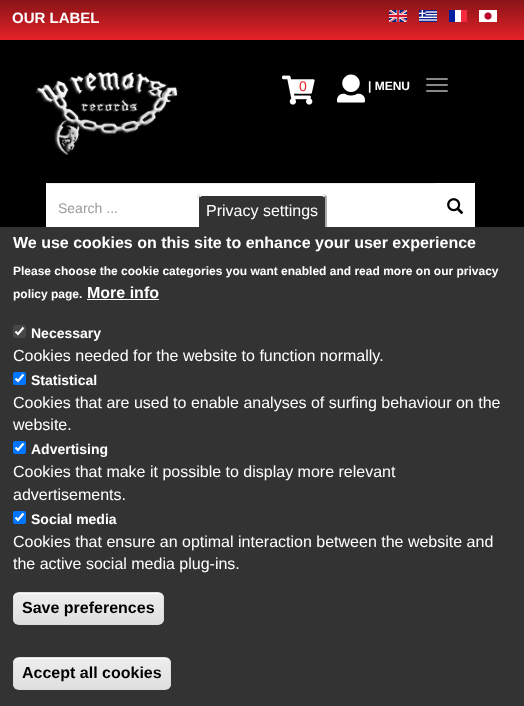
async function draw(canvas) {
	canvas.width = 524;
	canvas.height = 706;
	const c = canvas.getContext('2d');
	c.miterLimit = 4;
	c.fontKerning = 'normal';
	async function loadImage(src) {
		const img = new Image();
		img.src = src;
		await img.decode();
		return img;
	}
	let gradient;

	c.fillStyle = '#fff';
	c.fillRect(0, 0, 524, 706);
	gradient = c.createLinearGradient(262, 0, 262, 40);
	gradient.addColorStop(0, '#891418');
	gradient.addColorStop(1, '#e52228');
	c.fillStyle = gradient;
	c.fillRect(0, 0, 524, 40);
	c.font = 'bold 15px Liberation Sans';
	c.fillStyle = '#fff';
	c.fillText('OUR LABEL', 12, 23);
	c.drawImage(await loadImage('img1.png'), 389, 10, 18, 12);
	c.drawImage(await loadImage('img2.png'), 419, 10, 18, 12);
	c.drawImage(await loadImage('img3.png'), 449, 10, 18, 12);
	c.drawImage(await loadImage('img4.png'), 479, 10, 18, 12);
	c.fillStyle = '#000';
	c.fillRect(0, 40, 524, 187);
	c.drawImage(await loadImage('img5.png'), 282, 75, 33, 30);
	c.font = '14px Liberation Sans';
	c.fillStyle = '#e52228';
	c.fillText('0', 299, 91);
	c.drawImage(await loadImage('img6.png'), 337, 74, 28, 29);
	c.drawImage(await loadImage('img7.png'), 35, 72, 143, 83);
	c.fillStyle = '#888';
	c.beginPath();
	c.roundRect(426, 78, 22, 2, 1);
	c.fill();
	c.font = 'bold 12px Liberation Sans';
	c.fillStyle = '#fff';
	c.fillText('| MENU', 368, 90);
	c.fillStyle = '#888';
	c.beginPath();
	c.roundRect(426, 84, 22, 2, 1);
	c.fill();
	c.beginPath();
	c.roundRect(426, 90, 22, 2, 1);
	c.fill();
	c.fillStyle = '#fff';
	c.fillRect(46, 184, 389, 43);
	c.fillStyle = '#ececec';
	c.fillRect(46, 183, 389, 1);
	c.font = '14px Liberation Sans';
	c.fillStyle = '#999';
	c.fillText('Search ...', 58, 213);
	c.fillStyle = '#fff';
	c.fillRect(435, 183, 40, 44);
	c.drawImage(await loadImage('img8.png'), 447, 198, 17, 17);
	c.fillStyle = '#333';
	c.fillRect(0, 227, 524, 479);
	c.beginPath();
	c.roundRect(197, 194, 130, 33, [5, 5, 0, 0]);
	c.fill();
	c.fillStyle = '#fff';
	c.beginPath();
	c.moveTo(202, 196);
	c.lineTo(200, 197);
	c.lineTo(198, 195);
	c.lineTo(201, 194);
	c.lineTo(323, 194);
	c.lineTo(326, 195);
	c.lineTo(324, 197);
	c.lineTo(322, 196);
	c.closePath();
	c.fill();
	c.fillStyle = '#aaa';
	c.beginPath();
	c.moveTo(327, 198.5);
	c.lineTo(327, 227);
	c.lineTo(325, 227);
	c.lineTo(325, 199);
	c.bezierCurveTo(325, 198, 325, 197.5, 324.5, 197);
	c.lineTo(325.5, 195.5);
	c.bezierCurveTo(326.5, 196, 327, 197, 327, 198.5);
	c.closePath();
	c.fill();
	c.fillStyle = '#fff';
	c.beginPath();
	c.moveTo(199.5, 197);
	c.lineTo(198.5, 195.5);
	c.bezierCurveTo(197.5, 196.5, 197, 197.5, 197, 199);
	c.lineTo(197, 227);
	c.lineTo(199, 227);
	c.lineTo(199, 199);
	c.bezierCurveTo(199, 198, 199, 197.5, 199.5, 197);
	c.closePath();
	c.fill();
	c.font = '16px Liberation Sans';
	c.fillText('Privacy settings', 206, 216);
	c.font = 'bold 16px Liberation Sans';
	c.fillText('We use cookies on this site to enhance your user experience', 13, 248);
	c.font = 'bold 12px Liberation Sans';
	c.fillText('Please choose the cookie categories you want enabled and read more on our privacy', 13, 275);
	c.fillText('policy page.', 13, 298);
	c.font = 'bold 16px Liberation Sans';
	c.fillText('More info', 87, 298);
	c.fillRect(87, 299, 72, 1);
	c.fillStyle = '#474747';
	c.beginPath();
	c.roundRect(13, 325, 13, 13, 2);
	c.fill();
	c.beginPath();
	c.moveTo(15.5, 331.5);
	c.lineTo(18, 334);
	c.lineTo(23.5, 327.5);
	c.strokeStyle = '#fff';
	c.lineWidth = 2.1;
	c.stroke();
	c.font = 'bold 14px Liberation Sans';
	c.fillStyle = '#fff';
	c.fillText('Necessary', 31, 338);
	c.font = '16px Liberation Sans';
	c.fillText('Cookies needed for the website to function normally.', 13, 361);
	c.fillStyle = '#0075ff';
	c.beginPath();
	c.roundRect(13, 372, 13, 13, 2);
	c.fill();
	c.beginPath();
	c.moveTo(15.5, 378.5);
	c.lineTo(18, 381);
	c.lineTo(23.5, 374.5);
	c.stroke();
	c.font = 'bold 14px Liberation Sans';
	c.fillStyle = '#fff';
	c.fillText('Statistical', 31, 385);
	c.font = '16px Liberation Sans';
	c.fillText('Cookies that are used to enable analyses of surfing behaviour on the', 13, 408);
	c.fillText('website.', 13, 430);
	c.fillStyle = '#0075ff';
	c.beginPath();
	c.roundRect(13, 441, 13, 13, 2);
	c.fill();
	c.beginPath();
	c.moveTo(15.5, 447.5);
	c.lineTo(18, 450);
	c.lineTo(23.5, 443.5);
	c.stroke();
	c.font = 'bold 14px Liberation Sans';
	c.fillStyle = '#fff';
	c.fillText('Advertising', 31, 454);
	c.font = '16px Liberation Sans';
	c.fillText('Cookies that make it possible to display more relevant', 13, 477);
	c.fillText('advertisements.', 13, 500);
	c.fillStyle = '#0075ff';
	c.beginPath();
	c.roundRect(13, 511, 13, 13, 2);
	c.fill();
	c.beginPath();
	c.moveTo(15.5, 517.5);
	c.lineTo(18, 520);
	c.lineTo(23.5, 513.5);
	c.stroke();
	c.font = 'bold 14px Liberation Sans';
	c.fillStyle = '#fff';
	c.fillText('Social media', 31, 524);
	c.font = '16px Liberation Sans';
	c.fillText('Cookies that ensure an optimal interaction between the website and', 13, 547);
	c.fillText('the active social media plug-ins.', 13, 569);
	c.save();
	c.beginPath();
	c.roundRect(13, 592, 151, 33, 6);
	c.clip();
	gradient = c.createLinearGradient(89, 593, 89, 624);
	gradient.addColorStop(0.05, '#ededed');
	gradient.addColorStop(1, '#dfdfdf');
	c.fillStyle = gradient;
	c.fillRect(13, 593, 151, 31);
	c.restore();
	c.beginPath();
	c.moveTo(19, 594);
	c.lineTo(158, 594);
	c.bezierCurveTo(161, 594, 163, 596, 163, 599);
	c.lineTo(163, 598);
	c.bezierCurveTo(163, 595, 161, 593, 158, 593);
	c.lineTo(19, 593);
	c.bezierCurveTo(16, 593, 14, 595, 14, 598);
	c.lineTo(14, 599);
	c.bezierCurveTo(14, 596, 16, 594, 19, 594);
	c.closePath();
	c.fill();
	c.beginPath();
	c.roundRect(13.5, 592.5, 150, 32, 5.5);
	c.strokeStyle = '#dcdcdc';
	c.lineWidth = 1;
	c.stroke();
	c.font = 'bold 16px Liberation Sans';
	c.fillStyle = '#000';
	c.fillText('Save preferences', 22, 613);
	c.save();
	c.beginPath();
	c.roundRect(13, 657, 158, 33, 6);
	c.clip();
	gradient = c.createLinearGradient(92, 658, 92, 689);
	gradient.addColorStop(0.05, '#ededed');
	gradient.addColorStop(1, '#dfdfdf');
	c.fillStyle = gradient;
	c.fillRect(13, 658, 158, 31);
	c.restore();
	c.fillStyle = '#fff';
	c.beginPath();
	c.moveTo(19, 659);
	c.lineTo(165, 659);
	c.bezierCurveTo(168, 659, 170, 661, 170, 664);
	c.lineTo(170, 663);
	c.bezierCurveTo(170, 660, 168, 658, 165, 658);
	c.lineTo(19, 658);
	c.bezierCurveTo(16, 658, 14, 660, 14, 663);
	c.lineTo(14, 664);
	c.bezierCurveTo(14, 661, 16, 659, 19, 659);
	c.closePath();
	c.fill();
	c.beginPath();
	c.roundRect(13.5, 657.5, 157, 32, 5.5);
	c.stroke();
	c.fillStyle = '#000';
	c.fillText('Accept all cookies', 22, 678);
}

draw(document.querySelector('canvas'));
